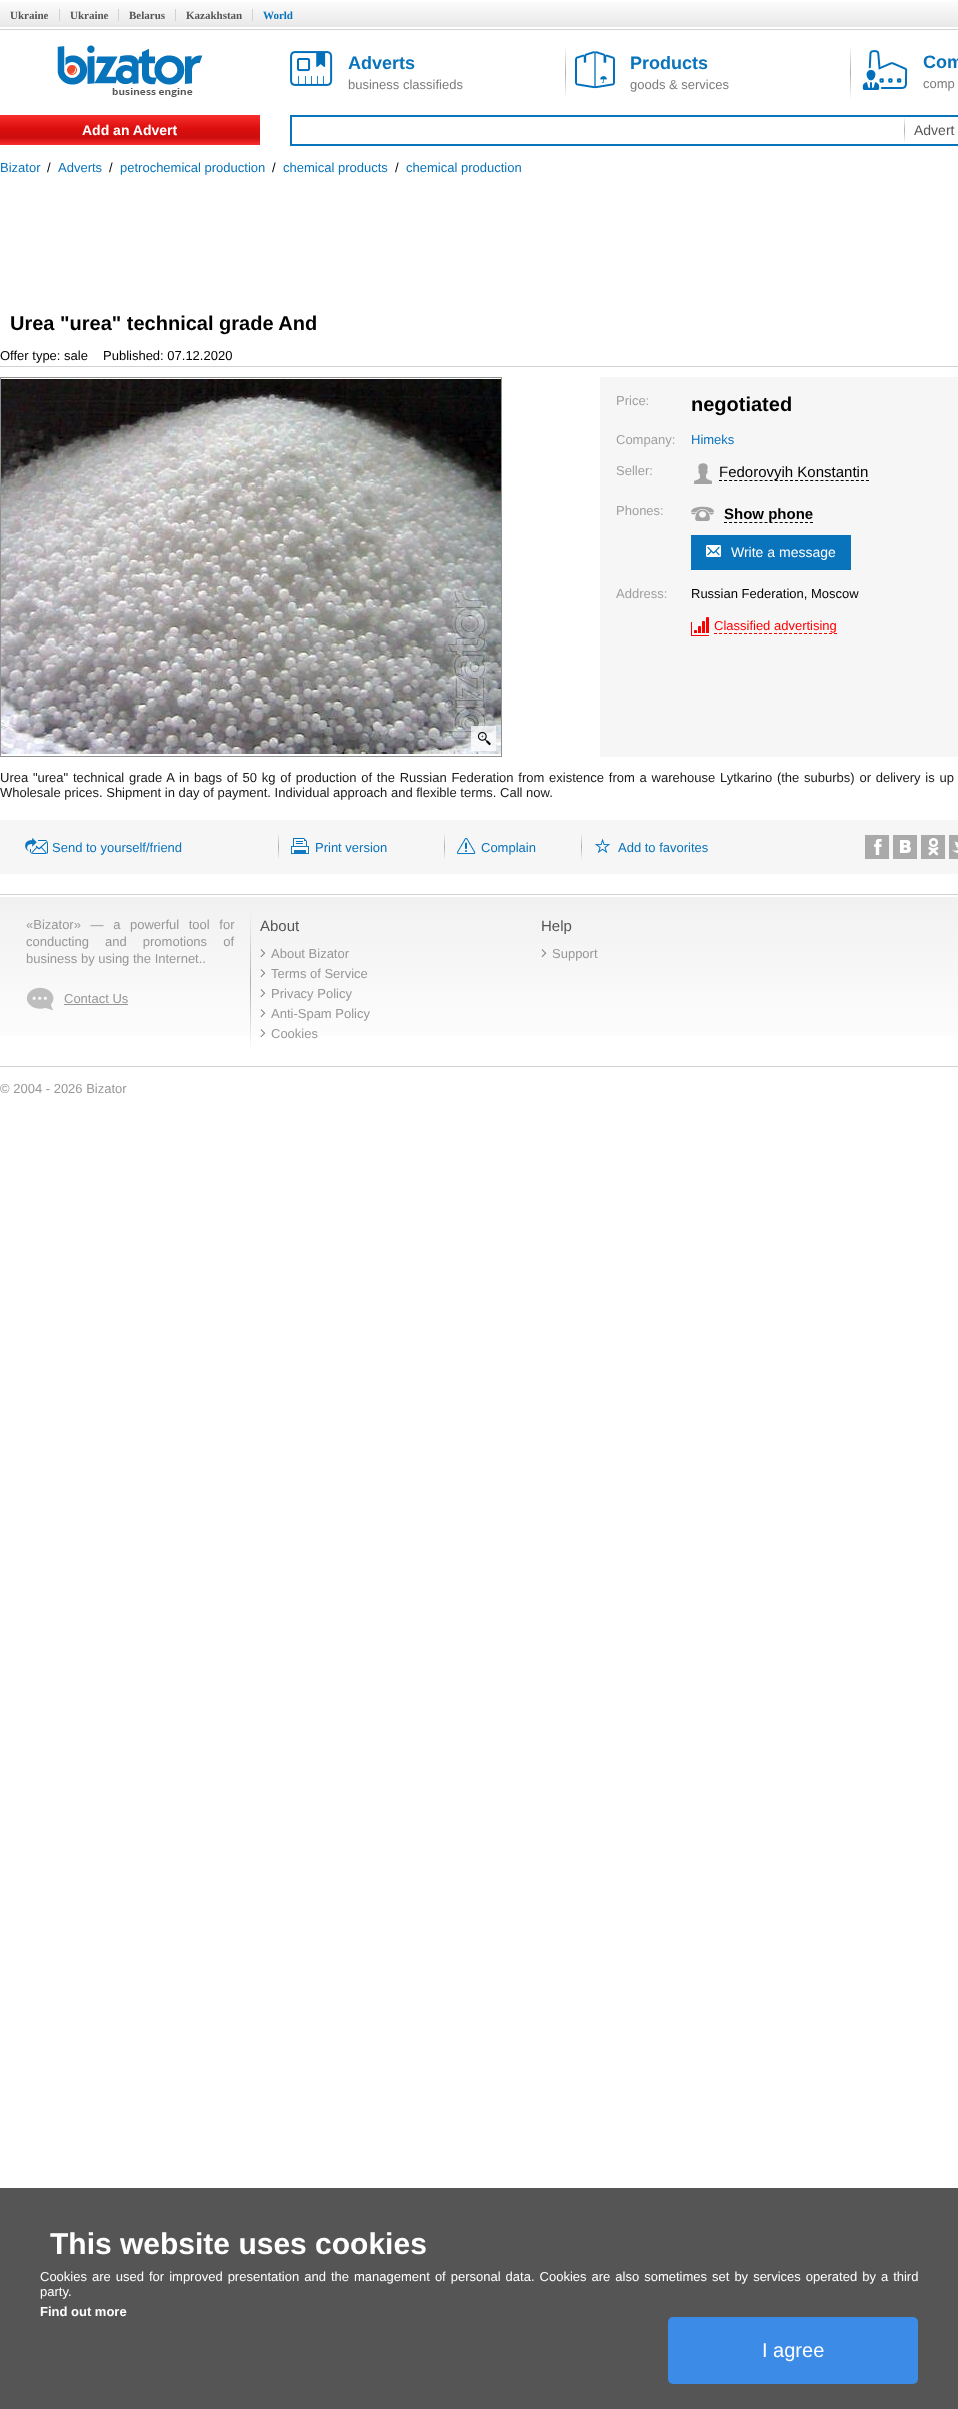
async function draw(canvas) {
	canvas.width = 958;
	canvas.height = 2409;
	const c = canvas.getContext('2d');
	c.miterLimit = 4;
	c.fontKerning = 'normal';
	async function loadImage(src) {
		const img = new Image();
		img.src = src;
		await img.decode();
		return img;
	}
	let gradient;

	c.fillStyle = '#fff';
	c.fillRect(0, 0, 958, 2409);
	gradient = c.createLinearGradient(570, 0, 570, 27);
	gradient.addColorStop(0, '#fdfdfd');
	gradient.addColorStop(1, '#e8e8e8');
	c.fillStyle = gradient;
	c.fillRect(0, 1, 958, 26);
	c.fillStyle = '#d2d2d2';
	c.fillRect(0, 29, 958, 1);
	c.font = 'bold 11px Liberation Serif';
	c.fillStyle = '#555';
	c.fillText('Ukraine', 10, 19);
	c.fillStyle = '#d2d2d2';
	c.fillRect(59, 9, 1, 12);
	c.fillStyle = '#555';
	c.fillText('Ukraine', 70, 19);
	c.fillStyle = '#d2d2d2';
	c.fillRect(118, 9, 1, 12);
	c.fillStyle = '#555';
	c.fillText('Belarus', 129, 19);
	c.fillStyle = '#d2d2d2';
	c.fillRect(175, 9, 1, 12);
	c.fillStyle = '#555';
	c.fillText('Kazakhstan', 186, 19);
	c.fillStyle = '#d2d2d2';
	c.fillRect(252, 9, 1, 12);
	c.fillStyle = '#0973bb';
	c.fillText('World', 263, 19);
	c.drawImage(await loadImage('img1.png'), 57, 45, 146, 52);
	c.drawImage(await loadImage('img2.png'), 290, 51, 43, 35);
	c.font = 'bold 18px Liberation Sans';
	c.fillText('Adverts', 348, 69);
	c.font = '13px Liberation Sans';
	c.fillStyle = '#7b7b7b';
	c.fillText('business classifieds', 348, 89);
	gradient = c.createLinearGradient(566, 46, 566, 99);
	gradient.addColorStop(0, '#fff');
	gradient.addColorStop(0.5, '#b0b0b0');
	gradient.addColorStop(1, '#fff');
	c.fillStyle = gradient;
	c.fillRect(565, 46, 1, 53);
	c.drawImage(await loadImage('img3.png'), 575, 51, 40, 38);
	c.font = 'bold 18px Liberation Sans';
	c.fillStyle = '#0973bb';
	c.fillText('Products', 630, 69);
	c.font = '13px Liberation Sans';
	c.fillStyle = '#7b7b7b';
	c.fillText('goods & services', 630, 89);
	gradient = c.createLinearGradient(851, 45, 851, 100);
	gradient.addColorStop(0, '#fff');
	gradient.addColorStop(0.5, '#b0b0b0');
	gradient.addColorStop(1, '#fff');
	c.fillStyle = gradient;
	c.fillRect(850, 45, 1, 55);
	c.drawImage(await loadImage('img4.png'), 862, 50, 46, 40);
	c.font = 'bold 18px Liberation Sans';
	c.fillStyle = '#0973bb';
	c.fillText('Com', 923, 68);
	c.font = '13px Liberation Sans';
	c.fillStyle = '#7b7b7b';
	c.fillText('comp', 923, 88);
	gradient = c.createLinearGradient(130, 115, 130, 145);
	gradient.addColorStop(0, '#fa2e2e');
	gradient.addColorStop(0.45, '#dc0e0e');
	gradient.addColorStop(0.75, '#cd0e0e');
	gradient.addColorStop(1, '#fa2e2e');
	c.fillStyle = gradient;
	c.fillRect(0, 115, 260, 30);
	c.font = 'bold 14px Liberation Sans';
	c.fillStyle = '#fff';
	c.fillText('Add an Advert', 82, 135);
	for (const [x, y, w, h, color] of [
		[290, 115, 668, 2, '#0973bb'],
		[290, 144, 668, 2, '#0973bb'],
		[290, 115, 2, 31, '#0973bb'],
	]) {
		c.fillStyle = color;
		c.fillRect(x, y, w, h);
	}
	gradient = c.createLinearGradient(905, 117, 905, 143);
	gradient.addColorStop(0, '#fff');
	gradient.addColorStop(0.5, '#b0b0b0');
	gradient.addColorStop(1, '#fff');
	c.fillStyle = gradient;
	c.fillRect(904, 117, 1, 26);
	c.font = '14px Liberation Sans';
	c.fillStyle = '#555';
	c.fillText('Advert', 914, 135);
	c.font = '13px Liberation Sans';
	c.fillStyle = '#0973bb';
	c.fillText('Bizator', 0, 172);
	c.fillStyle = '#000';
	c.fillText('/', 47, 172);
	c.fillStyle = '#0973bb';
	c.fillText('Adverts', 58, 172);
	c.fillStyle = '#000';
	c.fillText('/', 109, 172);
	c.fillStyle = '#0973bb';
	c.fillText('petrochemical production', 120, 172);
	c.fillStyle = '#000';
	c.fillText('/', 272, 172);
	c.fillStyle = '#0973bb';
	c.fillText('chemical products', 283, 172);
	c.fillStyle = '#000';
	c.fillText('/', 395, 172);
	c.fillStyle = '#0973bb';
	c.fillText('chemical production', 406, 172);
	c.font = 'bold 20px Liberation Sans';
	c.fillStyle = '#000';
	c.fillText('Urea "urea" technical grade And', 10, 330);
	c.fillStyle = '#d2d2d2';
	c.fillRect(0, 366, 958, 1);
	c.font = '13px Liberation Sans';
	c.fillStyle = '#000';
	c.fillText('Offer type: sale', 0, 360);
	c.fillText('Published: 07.12.2020', 103, 360);
	c.strokeStyle = '#919191';
	c.strokeRect(0.5, 377.5, 501, 379);
	c.drawImage(await loadImage('img5.png'), 1, 379, 500, 375);
	c.drawImage(await loadImage('img6.png'), 471, 726, 25, 25);
	c.fillStyle = '#f6f6f6';
	c.fillRect(600, 377, 358, 380);
	c.fillStyle = '#a0a0a0';
	c.fillText('Price:', 616, 405);
	c.font = 'bold 20px Liberation Sans';
	c.fillStyle = '#000';
	c.fillText('negotiated', 691, 411);
	c.font = '13px Liberation Sans';
	c.fillStyle = '#a0a0a0';
	c.fillText('Company:', 616, 444);
	c.fillStyle = '#0973bb';
	c.fillText('Himeks', 691, 444);
	c.fillStyle = '#a0a0a0';
	c.fillText('Seller:', 616, 475);
	c.drawImage(await loadImage('img7.png'), 694, 463, 18, 21);
	c.beginPath();
	c.moveTo(719, 480.5);
	c.lineTo(869, 480.5);
	c.strokeStyle = '#000';
	c.setLineDash([3, 2.07]);
	c.stroke();
	c.font = '15px Liberation Sans';
	c.fillStyle = '#000';
	c.fillText('Fedorovyih Konstantin', 719, 477);
	c.font = '13px Liberation Sans';
	c.fillStyle = '#a0a0a0';
	c.fillText('Phones:', 616, 515);
	c.drawImage(await loadImage('img8.png'), 691, 506, 23, 16);
	c.beginPath();
	c.moveTo(724, 522.5);
	c.lineTo(813, 522.5);
	c.setLineDash([3, 2.06]);
	c.stroke();
	c.font = 'bold 15px Liberation Sans';
	c.fillStyle = '#000';
	c.fillText('Show phone', 724, 519);
	c.fillStyle = '#0973bb';
	c.fillRect(691, 535, 160, 35);
	c.drawImage(await loadImage('img9.png'), 706, 545, 15, 12);
	c.font = '14px Liberation Sans';
	c.fillStyle = '#fff';
	c.fillText('Write a message', 731, 557);
	c.font = '13px Liberation Sans';
	c.fillStyle = '#a0a0a0';
	c.fillText('Address:', 616, 598);
	c.fillStyle = '#000';
	c.fillText('Russian Federation, Moscow', 691, 598);
	c.drawImage(await loadImage('img10.png'), 691, 617, 18, 19);
	c.fillStyle = '#f00';
	c.fillText('Classified advertising', 714, 630);
	c.beginPath();
	c.moveTo(714, 633.5);
	c.lineTo(837, 633.5);
	c.strokeStyle = '#f00';
	c.setLineDash([3, 2]);
	c.stroke();
	c.wordSpacing = '1.15px';
	c.fillStyle = '#191919';
	c.fillText('Urea "urea" technical grade A in bags of 50 kg of production of the Russian Federation from existence from a warehouse Lytkarino (the suburbs) or delivery is up', 0, 782);
	c.wordSpacing = '0px';
	c.fillText('Wholesale prices. Shipment in day of payment. Individual approach and flexible terms. Call now.', 0, 797);
	c.fillStyle = '#f6f6f6';
	c.fillRect(0, 820, 958, 54);
	c.drawImage(await loadImage('img11.png'), 25, 838, 24, 17);
	c.fillStyle = '#0973bb';
	c.fillText('Send to yourself/friend', 52, 852);
	gradient = c.createLinearGradient(279, 833, 279, 860);
	gradient.addColorStop(0, '#f6f6f6');
	gradient.addColorStop(0.5, '#b0b0b0');
	gradient.addColorStop(1, '#f6f6f6');
	c.fillStyle = gradient;
	c.fillRect(278, 833, 1, 27);
	c.drawImage(await loadImage('img12.png'), 291, 838, 19, 17);
	c.fillStyle = '#0973bb';
	c.fillText('Print version', 315, 852);
	gradient = c.createLinearGradient(445, 833, 445, 860);
	gradient.addColorStop(0, '#f6f6f6');
	gradient.addColorStop(0.5, '#b0b0b0');
	gradient.addColorStop(1, '#f6f6f6');
	c.fillStyle = gradient;
	c.fillRect(444, 833, 1, 27);
	c.drawImage(await loadImage('img13.png'), 457, 838, 19, 17);
	c.fillStyle = '#0973bb';
	c.fillText('Complain', 481, 852);
	gradient = c.createLinearGradient(582, 833, 582, 860);
	gradient.addColorStop(0, '#f6f6f6');
	gradient.addColorStop(0.5, '#b0b0b0');
	gradient.addColorStop(1, '#f6f6f6');
	c.fillStyle = gradient;
	c.fillRect(581, 833, 1, 27);
	c.drawImage(await loadImage('img14.png'), 595, 838, 16, 16);
	c.fillStyle = '#0973bb';
	c.fillText('Add to favorites', 618, 852);
	c.drawImage(await loadImage('img15.png'), 865, 835, 24, 24);
	c.drawImage(await loadImage('img16.png'), 893, 835, 24, 24);
	c.drawImage(await loadImage('img17.png'), 921, 835, 24, 24);
	c.drawImage(await loadImage('img18.png'), 949, 835, 9, 24);
	c.fillStyle = '#d2d2d2';
	c.fillRect(0, 894, 958, 1);
	gradient = c.createLinearGradient(570, 897, 570, 1066);
	gradient.addColorStop(0, '#f1f1f1');
	gradient.addColorStop(1, '#fff');
	c.fillStyle = gradient;
	c.fillRect(0, 897, 958, 139);
	c.wordSpacing = '6px';
	c.fillStyle = '#979797';
	c.fillText('«Bizator» — a powerful tool for', 26, 929);
	c.wordSpacing = '12.5px';
	c.fillText('conducting and promotions of', 26, 946);
	c.wordSpacing = '0px';
	c.fillText('business by using the Internet..', 26, 963);
	c.drawImage(await loadImage('img19.png'), 26, 987, 28, 24);
	c.fillText('Contact Us', 64, 1003);
	c.fillRect(64, 1004, 64, 1);
	gradient = c.createLinearGradient(251, 912, 251, 1051);
	gradient.addColorStop(0, '#b0b0b000');
	gradient.addColorStop(0.5, '#b0b0b0');
	gradient.addColorStop(1, '#b0b0b000');
	c.fillStyle = gradient;
	c.fillRect(250, 912, 1, 139);
	c.font = '15px Liberation Sans';
	c.fillStyle = '#555';
	c.fillText('About', 260, 931);
	c.drawImage(await loadImage('img20.png'), 260, 949, 6, 9);
	c.font = '13px Liberation Sans';
	c.fillStyle = '#979797';
	c.fillText('About Bizator', 271, 958);
	c.drawImage(await loadImage('img21.png'), 260, 969, 6, 9);
	c.fillText('Terms of Service', 271, 978);
	c.drawImage(await loadImage('img22.png'), 260, 989, 6, 9);
	c.fillText('Privacy Policy', 271, 998);
	c.drawImage(await loadImage('img23.png'), 260, 1009, 6, 9);
	c.fillText('Anti-Spam Policy', 271, 1018);
	c.drawImage(await loadImage('img24.png'), 260, 1029, 6, 9);
	c.fillText('Cookies', 271, 1038);
	c.font = '15px Liberation Sans';
	c.fillStyle = '#555';
	c.fillText('Help', 541, 931);
	c.drawImage(await loadImage('img20.png'), 541, 949, 6, 9);
	c.font = '13px Liberation Sans';
	c.fillStyle = '#979797';
	c.fillText('Support', 552, 958);
	c.fillStyle = '#d2d2d2';
	c.fillRect(0, 1066, 958, 1);
	c.fillStyle = '#979797';
	c.fillText('© 2004 - 2026 Bizator', 0, 1093);
	c.fillStyle = '#555';
	c.fillRect(0, 2188, 958, 221);
	c.font = 'bold 30px Liberation Sans';
	c.fillStyle = '#fff';
	c.fillText('This website uses cookies', 50, 2254);
	c.wordSpacing = '1.4px';
	c.font = '13px Liberation Sans';
	c.fillText('Cookies are used for improved presentation and the management of personal data. Cookies are also sometimes set by services operated by a third', 40, 2281);
	c.wordSpacing = '0px';
	c.fillText('party.', 40, 2296);
	c.font = 'bold 13px Liberation Sans';
	c.fillText('Find out more', 40, 2316);
	c.fillStyle = '#3b8be7';
	c.beginPath();
	c.roundRect(668, 2317, 250, 67, 5);
	c.fill();
	c.font = '20px Liberation Sans';
	c.fillStyle = '#fff';
	c.fillText('I agree', 762, 2357);
}

draw(document.querySelector('canvas'));
